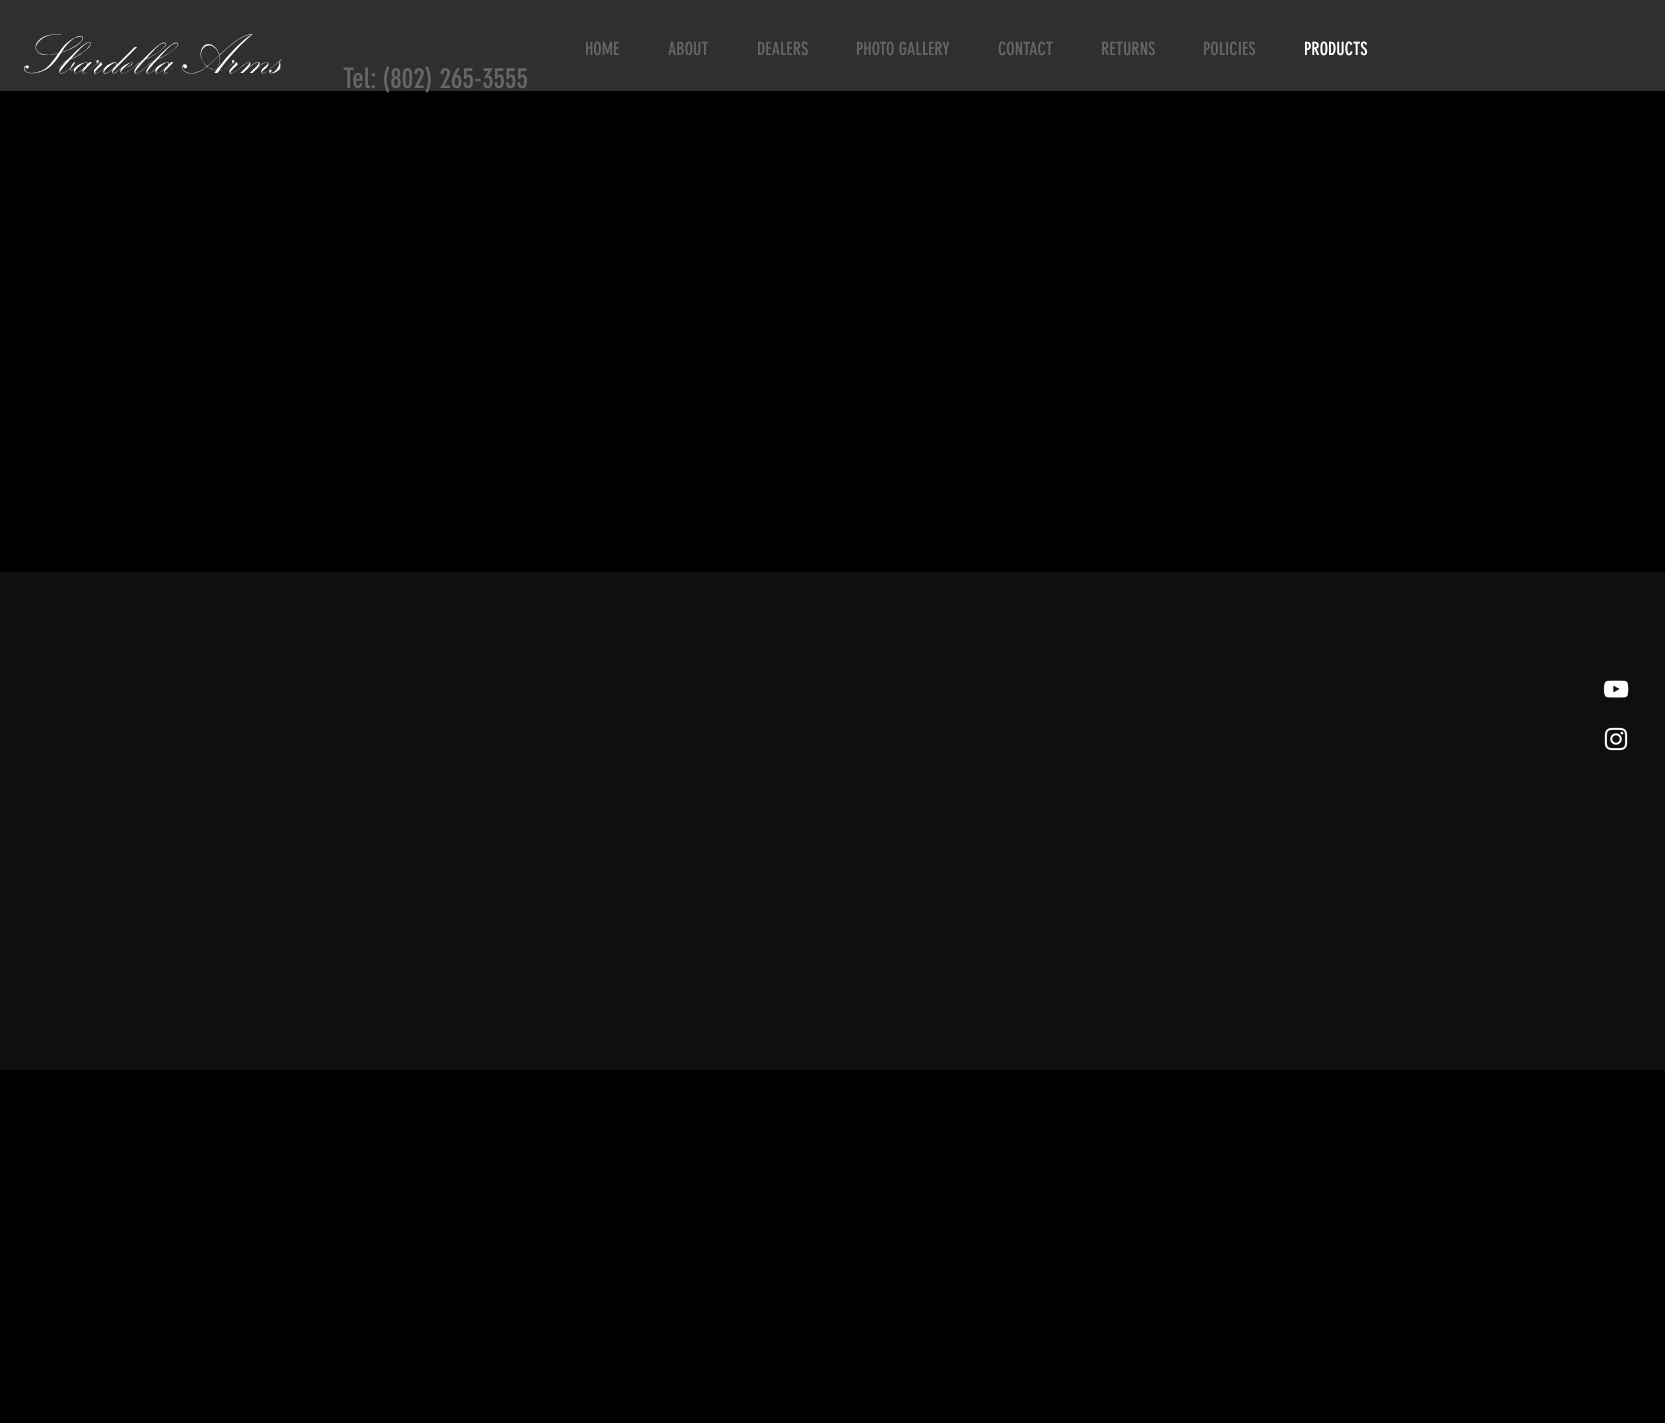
<svg xmlns="http://www.w3.org/2000/svg" width="1665" height="1423" viewBox="0 0 1665 1423">
  <style>
    .t1 { font: 57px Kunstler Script; fill: #fff; }
    .t2 { font: 18px 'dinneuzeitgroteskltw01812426'; fill: #666; }
    .t3 { font: 18px 'dinneuzeitgroteskltw01812426'; fill: #fff; }
    .t4 { font: 28px 'dinneuzeitgroteskltw01812426'; fill: #666; }
  </style>
  <rect width="100%" height="100%" fill="#000"/>
  <rect x="0" y="0" width="1665" height="91" fill="#2f2f2f"/>
  <text x="20" y="73" class="t1">Sbardella Arms</text>
  <text x="585" y="55" class="t2">HOME</text>
  <text x="668" y="55" class="t2">ABOUT</text>
  <text x="757" y="55" class="t2">DEALERS</text>
  <text x="856" y="55" class="t2">PHOTO GALLERY</text>
  <text x="998" y="55" class="t2">CONTACT</text>
  <text x="1101" y="55" class="t2">RETURNS</text>
  <text x="1203" y="55" class="t2">POLICIES</text>
  <text x="1304" y="55" class="t3">PRODUCTS</text>
  <text x="343" y="88" class="t4">Tel:</text>
  <text x="382" y="88" class="t4">(802) 265-3555</text>
  <rect x="0" y="572" width="1665" height="498" fill="#0f0f0f"/>
  <image x="1603" y="680" width="26" height="18" href="images/1.png"/>
  <image x="1604" y="727" width="24" height="24" href="images/2.png"/>
</svg>
